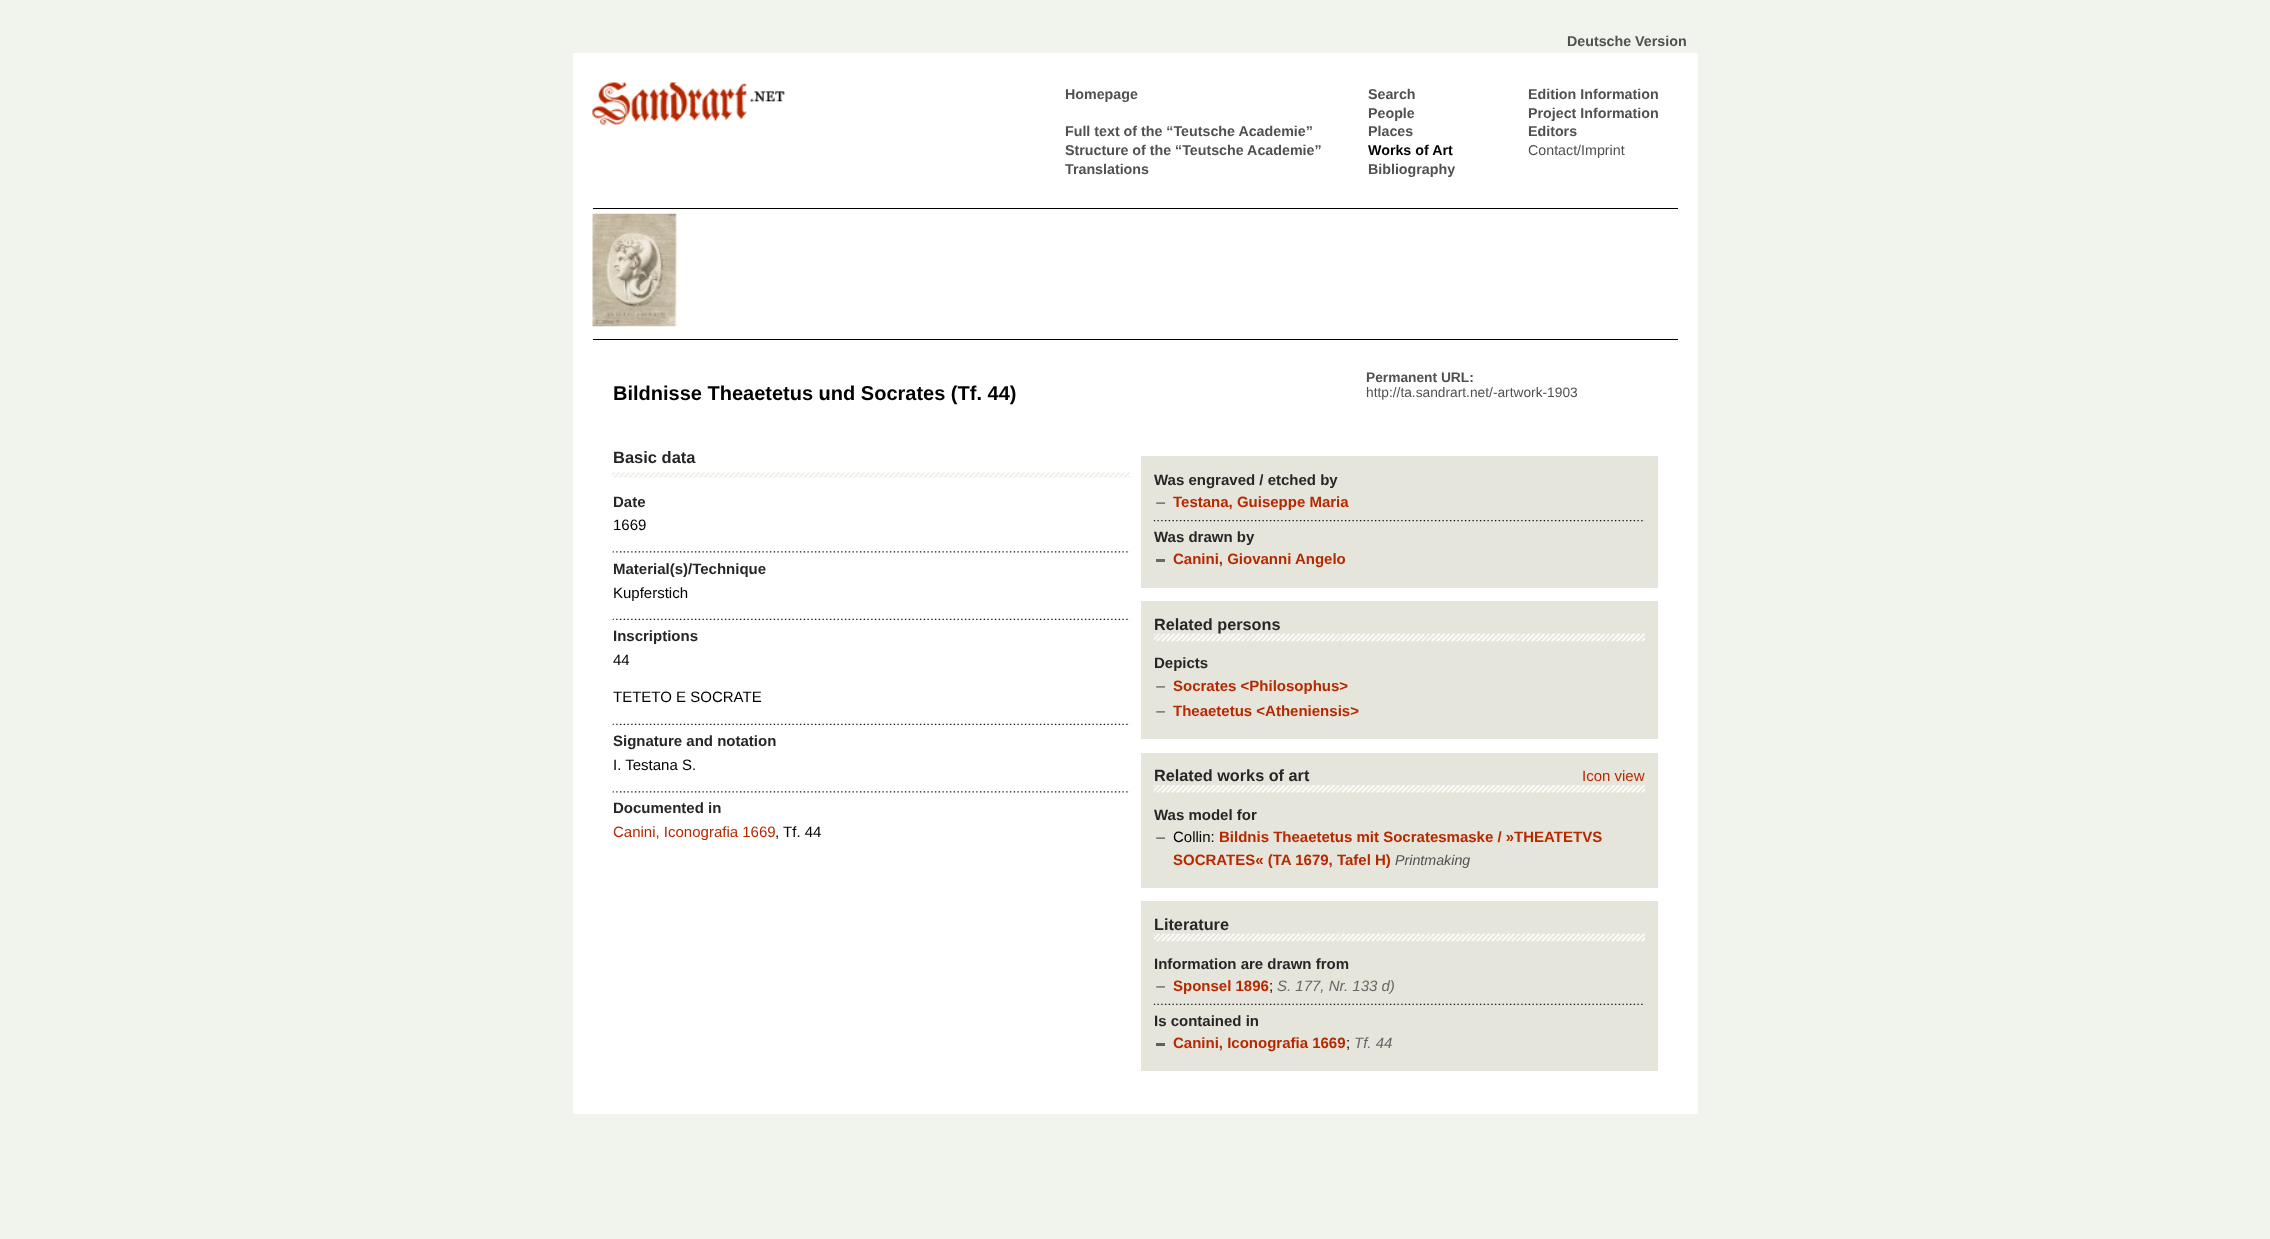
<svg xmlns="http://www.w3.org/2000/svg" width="2270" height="1239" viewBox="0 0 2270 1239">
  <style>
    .t1 { font: bold 14.25px Liberation Sans; fill: #505050; }
    .t2 { font: bold 14.25px Liberation Sans; fill: #000; }
    .t3 { font: 14.25px Liberation Sans; fill: #505050; }
    .t4 { font: bold 20px Liberation Sans; fill: #000; }
    .t5 { font: bold 13.75px Liberation Sans; fill: #505050; }
    .t6 { font: 13.75px Liberation Sans; fill: #505050; }
    .t7 { font: bold 16.5px Liberation Sans; fill: #262626; }
    .t8 { font: bold 15px Liberation Sans; fill: #262626; }
    .t9 { font: 15px Liberation Sans; fill: #000; }
    .t10 { font: 15px Liberation Sans; fill: #b52900; }
    .t11 { font: bold 15px Liberation Sans; fill: #b52900; }
    .t12 { font: bold 16.25px Liberation Sans; fill: #262626; }
    .t13 { font: italic 14.25px Liberation Sans; fill: #505050; }
    .t14 { font: italic 15px Liberation Sans; fill: #666; }
  </style>
  <rect width="100%" height="100%" fill="#f1f3ed"/>
  <text x="1567" y="46" class="t1">Deutsche Version</text>
  <rect x="573" y="53" width="1125" height="1061" fill="#fff"/>
  <rect x="593" y="208" width="1085" height="1" fill="#000"/>
  <image x="592" y="82" width="193" height="43" href="images/1.png"/>
  <text x="1065" y="99" class="t1">Homepage</text>
  <text x="1368" y="99" class="t1">Search</text>
  <text x="1528" y="99" class="t1">Edition Information</text>
  <text x="1368" y="118" class="t1">People</text>
  <text x="1528" y="118" class="t1">Project Information</text>
  <text x="1065" y="136" class="t1">Full text of the “Teutsche Academie”</text>
  <text x="1368" y="136" class="t1">Places</text>
  <text x="1528" y="136" class="t1">Editors</text>
  <text x="1065" y="155" class="t1">Structure of the “Teutsche Academie”</text>
  <text x="1368" y="155" class="t2">Works of Art</text>
  <text x="1528" y="155" class="t3">Contact/Imprint</text>
  <text x="1065" y="174" class="t1">Translations</text>
  <text x="1368" y="174" class="t1">Bibliography</text>
  <rect x="593" y="339" width="1085" height="1" fill="#000"/>
  <image x="592" y="213" width="87" height="114" href="images/2.png"/>
  <text x="613" y="400" class="t4">Bildnisse Theaetetus und Socrates (Tf. 44)</text>
  <text x="1366" y="382" class="t5">Permanent URL:</text>
  <text x="1366" y="397" class="t6">http://ta.sandrart.net/-artwork-1903</text>
  <image x="612" y="472" width="518" height="6" href="images/3.png"/>
  <text x="613" y="463" class="t7">Basic data</text>
  <text x="613" y="507" class="t8">Date</text>
  <text x="613" y="530" class="t9">1669</text>
  <image x="612" y="551" width="518" height="2" href="images/4.png"/>
  <text x="613" y="574" class="t8">Material(s)/Technique</text>
  <text x="613" y="598" class="t9">Kupferstich</text>
  <image x="612" y="618" width="518" height="2" href="images/5.png"/>
  <text x="613" y="641" class="t8">Inscriptions</text>
  <text x="613" y="665" class="t9">44</text>
  <text x="613" y="702" class="t9">TETETO E SOCRATE</text>
  <image x="612" y="723" width="518" height="2" href="images/5.png"/>
  <text x="613" y="746" class="t8">Signature and notation</text>
  <text x="613" y="770" class="t9">I. Testana S.</text>
  <image x="612" y="791" width="518" height="2" href="images/4.png"/>
  <text x="613" y="813" class="t8">Documented in</text>
  <text x="613" y="837" class="t10">Canini, Iconografia 1669</text>
  <text x="775" y="837" class="t9">, Tf. 44</text>
  <rect x="1141" y="456" width="517" height="132" fill="#e6e5db"/>
  <text x="1154" y="485" class="t8">Was engraved / etched by</text>
  <image x="1156" y="502" width="9" height="2" href="images/6.png"/>
  <text x="1173" y="507" class="t11">Testana, Guiseppe Maria</text>
  <image x="1153" y="520" width="492" height="2" href="images/7.png"/>
  <text x="1154" y="542" class="t8">Was drawn by</text>
  <rect x="1156" y="559" width="9" height="3" fill="#6a6968"/>
  <text x="1173" y="564" class="t11">Canini, Giovanni Angelo</text>
  <rect x="1141" y="601" width="517" height="138" fill="#e6e5db"/>
  <image x="1153" y="633" width="492" height="9" href="images/8.png"/>
  <text x="1154" y="630" class="t12">Related persons</text>
  <text x="1154" y="668" class="t8">Depicts</text>
  <image x="1156" y="686" width="9" height="2" href="images/9.png"/>
  <text x="1173" y="691" class="t11">Socrates &lt;Philosophus&gt;</text>
  <image x="1156" y="711" width="9" height="2" href="images/9.png"/>
  <text x="1173" y="716" class="t11">Theaetetus &lt;Atheniensis&gt;</text>
  <rect x="1141" y="753" width="517" height="135" fill="#e6e5db"/>
  <image x="1153" y="785" width="492" height="8" href="images/10.png"/>
  <text x="1154" y="781" class="t12">Related works of art</text>
  <text x="1582" y="781" class="t10">Icon view</text>
  <text x="1154" y="820" class="t8">Was model for</text>
  <image x="1156" y="837" width="9" height="2" href="images/6.png"/>
  <text x="1173" y="842" class="t9">Collin:</text>
  <text x="1219" y="842" class="t11">Bildnis Theaetetus mit Socratesmaske / »THEATETVS</text>
  <text x="1173" y="865" class="t11">SOCRATES« (TA 1679, Tafel H)</text>
  <text x="1395" y="865" class="t13">Printmaking</text>
  <rect x="1141" y="901" width="517" height="170" fill="#e6e5db"/>
  <image x="1153" y="933" width="492" height="9" href="images/11.png"/>
  <text x="1154" y="930" class="t12">Literature</text>
  <text x="1154" y="969" class="t8">Information are drawn from</text>
  <image x="1156" y="986" width="9" height="2" href="images/9.png"/>
  <text x="1173" y="991" class="t11">Sponsel 1896</text>
  <text x="1269" y="991" class="t9">;</text>
  <text x="1277" y="991" class="t14">S. 177, Nr. 133 d)</text>
  <image x="1153" y="1003" width="492" height="2" href="images/12.png"/>
  <text x="1154" y="1026" class="t8">Is contained in</text>
  <rect x="1156" y="1043" width="9" height="3" fill="#5f5f5e"/>
  <text x="1173" y="1048" class="t11">Canini, Iconografia 1669</text>
  <text x="1346" y="1048" class="t9">;</text>
  <text x="1354" y="1048" class="t14">Tf. 44</text>
</svg>
